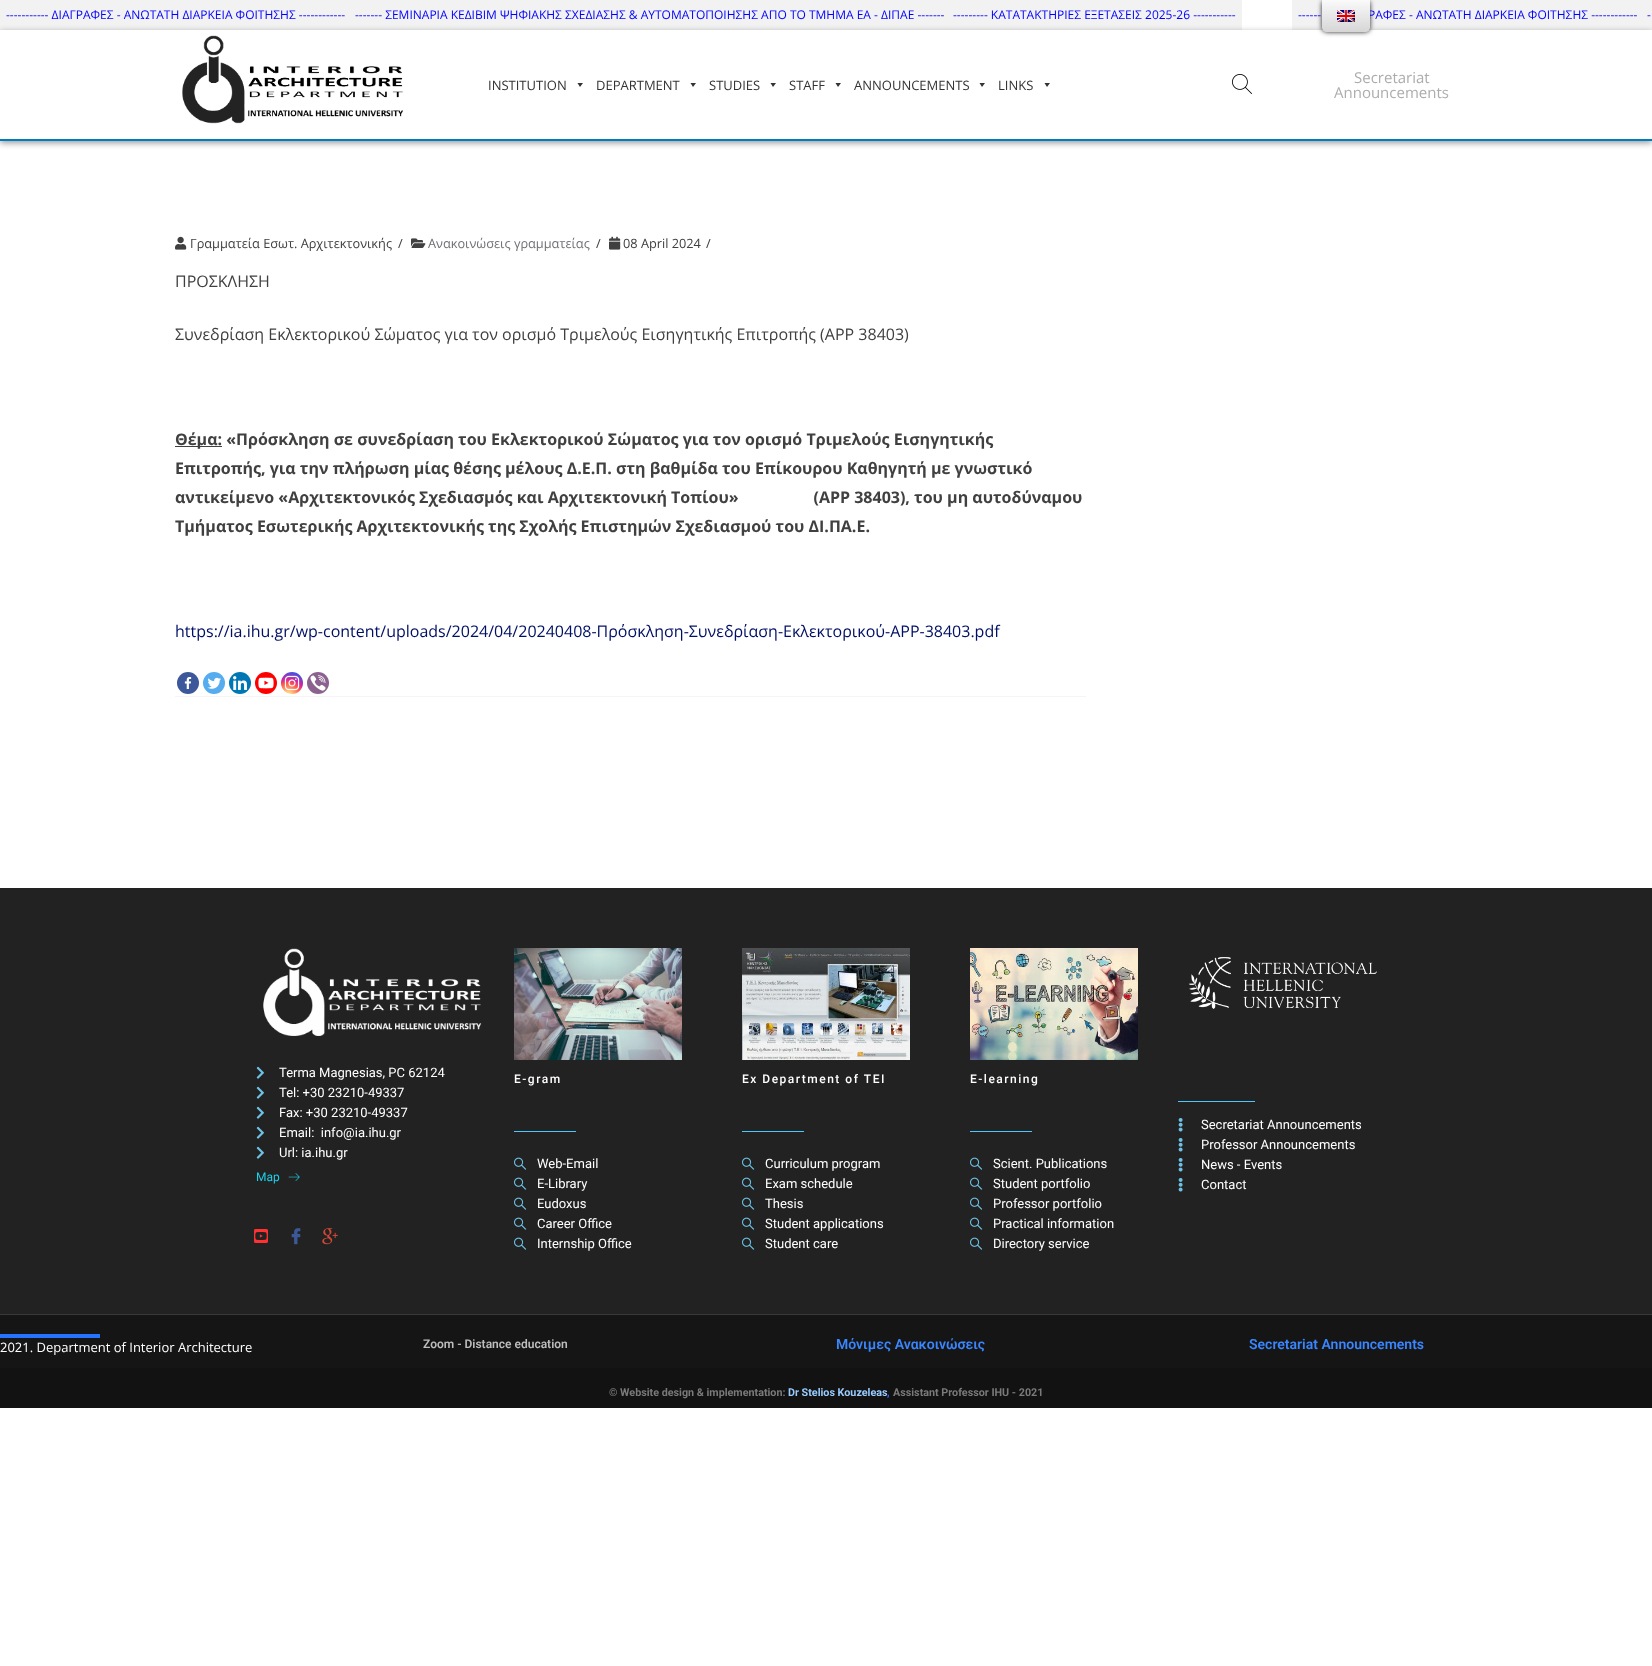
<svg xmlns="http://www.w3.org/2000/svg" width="1652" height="1666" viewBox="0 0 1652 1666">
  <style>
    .t1 { font: 12px Open Sans; fill: #00f; }
    .t2 { font: 13px Open Sans; fill: #333; }
    .t3 { font: 15px Open Sans; fill: #adadad; }
    .t4 { font: 12.75px Open Sans; fill: #404040; }
    .t5 { font: 12.75px Open Sans; fill: #716f75; }
    .t6 { font: 16px Open Sans; fill: #404040; }
    .t7 { font: bold 16px Open Sans; fill: #404040; }
    .t8 { font: 16px Open Sans; fill: #011064; }
    .t9 { font: 13px Roboto; fill: #fff; }
    .t10 { font: 12px Roboto; fill: #1bd1ea; }
    .t11 { font: 500 12px Roboto; letter-spacing: 1.5px; fill: #fff; }
    .t12 { font: 13px Open Sans; fill: #fff; }
    .t13 { font: 600 12px Roboto; fill: #bdbdbd; }
    .t14 { font: 600 14px Roboto; fill: #3986ff; }
    .t15 { font: bold 10.75px Roboto; fill: #7a7a7a; }
    .t16 { font: bold 10.75px Roboto; fill: #9cf; }
    .t17 { font: bold 10.75px Roboto; fill: #36f; }
  </style>
  <defs>
    <clipPath id="clip1"><path d="M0 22H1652V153H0ZM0 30H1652V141H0Z" clip-rule="evenodd"/></clipPath>
    <linearGradient id="g1" gradientUnits="userSpaceOnUse" x1="1346" y1="32" x2="1346" y2="0"><stop offset="0" stop-color="#d6d6d6"/><stop offset="1" stop-color="#fafafa"/></linearGradient>
    <radialGradient id="g2" gradientUnits="userSpaceOnUse" cx="288" cy="696" r="28"><stop offset="0" stop-color="#fdf497"/><stop offset="0.05" stop-color="#fdf497"/><stop offset="0.45" stop-color="#fd5949"/><stop offset="0.6" stop-color="#d6249f"/><stop offset="0.9" stop-color="#285aeb"/></radialGradient>
  </defs>
  <rect width="100%" height="100%" fill="#fff"/>
  <rect x="1292" y="0" width="360" height="30" fill="#f2f2f2"/>
  <rect x="1322" y="0" width="48" height="32" rx="5" fill="#212121" filter="blur(2.5px)"/>
  <text x="1368" y="19" class="t1">ΡΑΦΕΣ - ΑΝΩΤΑΤΗ ΔΙΑΡΚΕΙΑ ΦΟΙΤΗΣΗΣ ------------</text>
  <rect x="0" y="0" width="1242" height="30" fill="#f2f2f2"/>
  <g clip-path="url(#clip1)">
    <rect x="0" y="32" width="1652" height="111" fill="#00000066" filter="blur(3px)"/>
  </g>
  <path d="M1322 0H1370V27C1370 30 1368 32 1365 32H1327C1324 32 1322 30 1322 27Z" fill="url(#g1)"/>
  <image x="1337" y="10" width="18" height="12" href="images/1.png"/>
  <text x="6" y="19" class="t1">----------- ΔΙΑΓΡΑΦΕΣ - ΑΝΩΤΑΤΗ ΔΙΑΡΚΕΙΑ ΦΟΙΤΗΣΗΣ ------------</text>
  <text x="355" y="19" class="t1">------- ΣΕΜΙΝΑΡΙΑ ΚΕΔΙΒΙΜ ΨΗΦΙΑΚΗΣ ΣΧΕΔΙΑΣΗΣ &amp; ΑΥΤΟΜΑΤΟΠΟΙΗΣΗΣ ΑΠΟ ΤΟ ΤΜΗΜΑ ΕΑ - ΔΙΠΑΕ -------</text>
  <text x="953" y="19" class="t1">--------- ΚΑΤΑΤΑΚΤΗΡΙΕΣ ΕΞΕΤΑΣΕΙΣ 2025-26 -----------</text>
  <text x="1298" y="19" class="t1">------</text>
  <text x="1647" y="19" class="t1">-</text>
  <rect x="0" y="139" width="1652" height="2" fill="#017bbd"/>
  <image x="182" y="35" width="222" height="89" href="images/2.png"/>
  <text x="488" y="90" class="t2">INSTITUTION</text>
  <path d="M583 83L580 87L577.5 83Z" fill="#333"/>
  <text x="596" y="90" class="t2">DEPARTMENT</text>
  <path d="M696 83L693 87L690.5 83Z" fill="#333"/>
  <text x="709" y="90" class="t2">STUDIES</text>
  <path d="M776 83L773 87L770.5 83Z" fill="#333"/>
  <text x="789" y="90" class="t2">STAFF</text>
  <path d="M841 83L838 87L835.5 83Z" fill="#333"/>
  <text x="854" y="90" class="t2">ANNOUNCEMENTS</text>
  <path d="M985 83L982 87L979.5 83Z" fill="#333"/>
  <text x="998" y="90" class="t2">LINKS</text>
  <path d="M1050 83L1047 87L1044.5 83Z" fill="#333"/>
  <image x="1232" y="74" width="20" height="20" href="images/3.png"/>
  <text x="1354" y="83" class="t3">Secretariat</text>
  <text x="1334" y="98" class="t3">Announcements</text>
  <rect x="175" y="696" width="911" height="1" fill="#f5f5f5"/>
  <image x="175" y="236" width="12" height="14" href="images/4.png"/>
  <text x="190" y="248" class="t4">Γραμματεία Εσωτ. Αρχιτεκτονικής</text>
  <text x="398" y="248" class="t4">/</text>
  <image x="411" y="238" width="15" height="10" href="images/5.png"/>
  <text x="428" y="248" class="t5">Ανακοινώσεις γραμματείας</text>
  <text x="596" y="248" class="t4">/</text>
  <image x="609" y="236" width="12" height="14" href="images/6.png"/>
  <text x="623" y="248" class="t4">08 April 2024</text>
  <text x="706" y="248" class="t4">/</text>
  <text x="175" y="287" class="t6">ΠΡΟΣΚΛΗΣΗ</text>
  <text x="175" y="340" class="t6">Συνεδρίαση Εκλεκτορικού Σώματος για τον ορισμό Τριμελούς Εισηγητικής Επιτροπής (ΑΡΡ 38403)</text>
  <rect x="175" y="446" width="47" height="1" fill="#404040"/>
  <text x="175" y="445" class="t7">Θέμα: «Πρόσκληση σε συνεδρίαση του Εκλεκτορικού Σώματος για τον ορισμό Τριμελούς Εισηγητικής</text>
  <text x="175" y="474" class="t7">Επιτροπής, για την πλήρωση μίας θέσης μέλους Δ.Ε.Π. στη βαθμίδα του Επίκουρου Καθηγητή με γνωστικό</text>
  <text x="175" y="503" class="t7" xml:space="preserve">αντικείμενο «Αρχιτεκτονικός Σχεδιασμός και Αρχιτεκτονική Τοπίου»                  (ΑΡΡ 38403), του μη αυτοδύναμου</text>
  <text x="175" y="532" class="t7">Τμήματος Εσωτερικής Αρχιτεκτονικής της Σχολής Επιστημών Σχεδιασμού του ΔΙ.ΠΑ.Ε.</text>
  <text x="175" y="637" class="t8">https://ia.ihu.gr/wp-content/uploads/2024/04/20240408-Πρόσκληση-Συνεδρίαση-Εκλεκτορικού-ΑΡΡ-38403.pdf</text>
  <circle cx="188" cy="683" r="11" fill="#3c589a"/>
  <image x="184" y="677" width="8" height="12" href="images/7.png"/>
  <circle cx="214" cy="683" r="11" fill="#55acee"/>
  <image x="207" y="677" width="14" height="12" href="images/8.png"/>
  <circle cx="240" cy="683" r="11" fill="#0077b5"/>
  <image x="233" y="676" width="14" height="14" href="images/9.png"/>
  <circle cx="266" cy="683" r="11" fill="#f00"/>
  <image x="258" y="677" width="16" height="12" href="images/10.png"/>
  <circle cx="292" cy="683" r="11" fill="url(#g2)"/>
  <image x="284" y="675" width="16" height="16" href="images/11.png"/>
  <circle cx="318" cy="683" r="11" fill="#8b628f"/>
  <image x="310" y="675" width="16" height="16" href="images/12.png"/>
  <rect x="0" y="888" width="1652" height="426" fill="#222"/>
  <rect x="0" y="1314" width="1652" height="1" fill="#393939"/>
  <image x="263" y="948" width="219" height="88" href="images/13.png"/>
  <image x="256" y="1066" width="8" height="13" href="images/14.png"/>
  <text x="279" y="1077" class="t9">Terma Magnesias, PC 62124</text>
  <image x="256" y="1086" width="8" height="13" href="images/14.png"/>
  <text x="279" y="1097" class="t9">Tel: +30 23210-49337</text>
  <image x="256" y="1106" width="8" height="13" href="images/14.png"/>
  <text x="279" y="1117" class="t9">Fax: +30 23210-49337</text>
  <image x="256" y="1126" width="8" height="13" href="images/14.png"/>
  <text x="279" y="1137" class="t9" xml:space="preserve">Email:  info@ia.ihu.gr</text>
  <image x="256" y="1146" width="8" height="13" href="images/14.png"/>
  <text x="279" y="1157" class="t9">Url: ia.ihu.gr</text>
  <text x="256" y="1181" class="t10">Map</text>
  <image x="288" y="1173" width="12" height="8" href="images/15.png"/>
  <image x="254" y="1229" width="14" height="14" href="images/16.png"/>
  <image x="291" y="1228" width="10" height="17" href="images/17.png"/>
  <image x="322" y="1228" width="16" height="17" href="images/18.png"/>
  <image x="514" y="948" width="168" height="112" href="images/19.png"/>
  <text x="514" y="1083" class="t11">E-gram</text>
  <rect x="514" y="1131" width="62" height="1" fill="#4ac9ff"/>
  <image x="514" y="1157" width="13" height="13" href="images/20.png"/>
  <text x="537" y="1168" class="t9">Web-Email</text>
  <image x="514" y="1177" width="13" height="13" href="images/20.png"/>
  <text x="537" y="1188" class="t9">E-Library</text>
  <image x="514" y="1197" width="13" height="13" href="images/20.png"/>
  <text x="537" y="1208" class="t9">Eudoxus</text>
  <image x="514" y="1217" width="13" height="13" href="images/20.png"/>
  <text x="537" y="1228" class="t9">Career Office</text>
  <image x="514" y="1237" width="13" height="13" href="images/20.png"/>
  <text x="537" y="1248" class="t9">Internship Office</text>
  <image x="742" y="948" width="168" height="112" href="images/21.png"/>
  <text x="742" y="1083" class="t11">Ex Department of ΤΕΙ</text>
  <rect x="742" y="1131" width="62" height="1" fill="#4ac9ff"/>
  <image x="742" y="1157" width="13" height="13" href="images/20.png"/>
  <text x="765" y="1168" class="t9">Curriculum program</text>
  <image x="742" y="1177" width="13" height="13" href="images/20.png"/>
  <text x="765" y="1188" class="t9">Exam schedule</text>
  <image x="742" y="1197" width="13" height="13" href="images/20.png"/>
  <text x="765" y="1208" class="t9">Thesis</text>
  <image x="742" y="1217" width="13" height="13" href="images/20.png"/>
  <text x="765" y="1228" class="t9">Student applications</text>
  <image x="742" y="1237" width="13" height="13" href="images/20.png"/>
  <text x="765" y="1248" class="t9">Student care</text>
  <image x="970" y="948" width="168" height="112" href="images/22.png"/>
  <text x="970" y="1083" class="t11">E-learning</text>
  <rect x="970" y="1131" width="62" height="1" fill="#4ac9ff"/>
  <image x="970" y="1157" width="13" height="13" href="images/20.png"/>
  <text x="993" y="1168" class="t9">Scient. Publications</text>
  <image x="970" y="1177" width="13" height="13" href="images/20.png"/>
  <text x="993" y="1188" class="t9">Student portfolio</text>
  <image x="970" y="1197" width="13" height="13" href="images/20.png"/>
  <text x="993" y="1208" class="t9">Professor portfolio</text>
  <image x="970" y="1217" width="13" height="13" href="images/20.png"/>
  <text x="993" y="1228" class="t9">Practical information</text>
  <image x="970" y="1237" width="13" height="13" href="images/20.png"/>
  <text x="993" y="1248" class="t9">Directory service</text>
  <image x="1188" y="957" width="189" height="52" href="images/23.png"/>
  <rect x="1178" y="1101" width="77" height="1" fill="#4ac9ff"/>
  <image x="1178" y="1118" width="5" height="14" href="images/24.png"/>
  <text x="1201" y="1129" class="t9">Secretariat Announcements</text>
  <image x="1178" y="1138" width="5" height="14" href="images/24.png"/>
  <text x="1201" y="1149" class="t9">Professor Announcements</text>
  <image x="1178" y="1158" width="5" height="14" href="images/24.png"/>
  <text x="1201" y="1169" class="t9">News - Events</text>
  <image x="1178" y="1178" width="5" height="14" href="images/24.png"/>
  <text x="1201" y="1189" class="t9">Contact</text>
  <rect x="0" y="1315" width="1652" height="53" fill="#151515"/>
  <rect x="0" y="1334" width="100" height="4" fill="#2575fc"/>
  <text x="0" y="1352" class="t12">2021. Department of Interior Architecture</text>
  <text x="423" y="1348" class="t13">Zoom - Distance education</text>
  <text x="836" y="1349" class="t14">Μόνιμες Ανακοινώσεις</text>
  <text x="1249" y="1349" class="t14">Secretariat Announcements</text>
  <rect x="0" y="1368" width="1652" height="40" fill="#121212"/>
  <text x="609" y="1396" class="t15">© Website design &amp; implementation:</text>
  <text x="788" y="1396" class="t16">Dr Stelios Kouzeleas</text>
  <text x="887" y="1396" class="t17">,</text>
  <text x="893" y="1396" class="t15">Assistant Professor IHU - 2021</text>
</svg>
